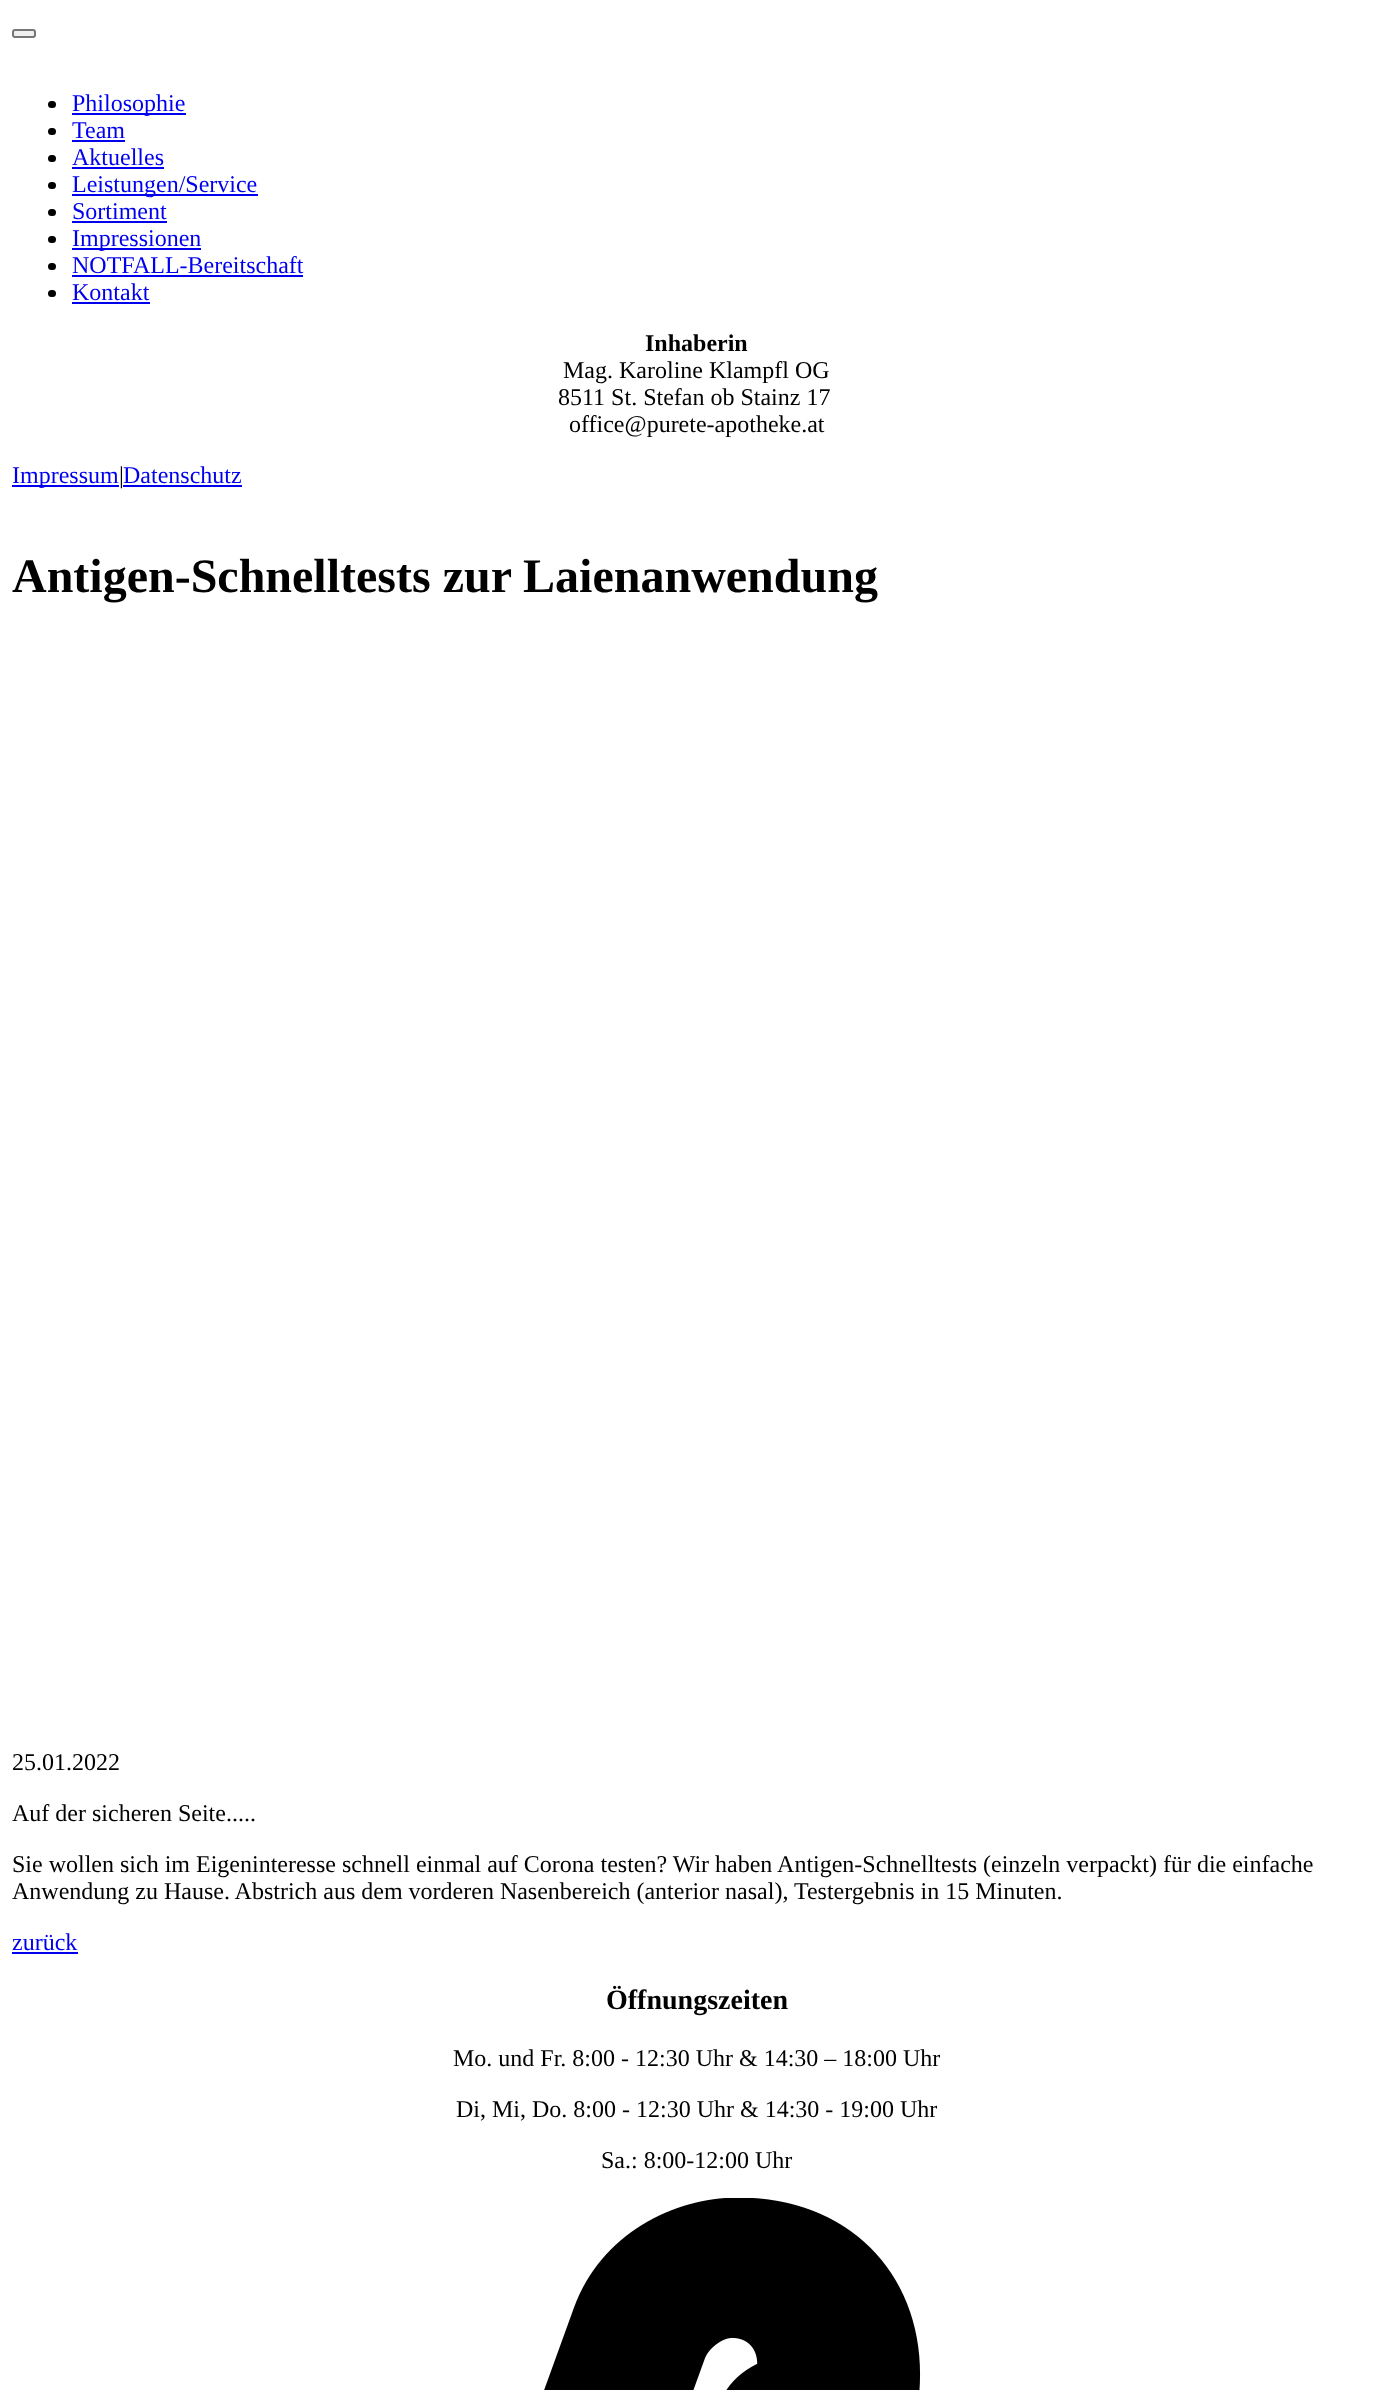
<svg xmlns="http://www.w3.org/2000/svg" width="1393" height="2390" viewBox="0 0 1393 2390">
  <style>
    .t1 { font: 24px Liberation Serif; fill: #00e; }
    .t2 { font: bold 24px Liberation Serif; fill: #000; }
    .t3 { font: 24px Liberation Serif; fill: #000; }
    .t4 { font: bold 48px Liberation Serif; fill: #000; }
    .t5 { font: bold 28px Liberation Serif; fill: #000; }
  </style>
  <rect width="100%" height="100%" fill="#fff"/>
  <rect x="13" y="30" width="22" height="7" rx="2" fill="#efefef" stroke="#767676" stroke-width="2"/>
  <rect x="48" y="101" width="8" height="7" rx="3.5" fill="#000"/>
  <rect x="72" y="113" width="114" height="2" fill="#00e"/>
  <text x="72" y="111" class="t1">Philosophie</text>
  <rect x="48" y="128" width="8" height="7" rx="3.5" fill="#000"/>
  <text x="72" y="138" class="t1">Team</text>
  <rect x="72" y="140" width="53" height="2" fill="#00e"/>
  <rect x="48" y="155" width="8" height="7" rx="3.5" fill="#000"/>
  <text x="72" y="165" class="t1">Aktuelles</text>
  <rect x="72" y="167" width="92" height="2" fill="#00e"/>
  <rect x="48" y="182" width="8" height="7" rx="3.5" fill="#000"/>
  <rect x="72" y="194" width="186" height="2" fill="#00e"/>
  <text x="72" y="192" class="t1">Leistungen/Service</text>
  <rect x="48" y="209" width="8" height="7" rx="3.5" fill="#000"/>
  <text x="72" y="219" class="t1">Sortiment</text>
  <rect x="72" y="221" width="95" height="2" fill="#00e"/>
  <rect x="48" y="236" width="8" height="7" rx="3.5" fill="#000"/>
  <rect x="72" y="248" width="129" height="2" fill="#00e"/>
  <text x="72" y="246" class="t1">Impressionen</text>
  <rect x="48" y="263" width="8" height="7" rx="3.5" fill="#000"/>
  <text x="72" y="273" class="t1">NOTFALL-Bereitschaft</text>
  <rect x="72" y="275" width="231" height="2" fill="#00e"/>
  <rect x="48" y="290" width="8" height="7" rx="3.5" fill="#000"/>
  <text x="72" y="300" class="t1">Kontakt</text>
  <rect x="72" y="302" width="78" height="2" fill="#00e"/>
  <text x="645" y="351" class="t2">Inhaberin</text>
  <text x="563" y="378" class="t3">Mag. Karoline Klampfl OG</text>
  <text x="558" y="405" class="t3">8511 St. Stefan ob Stainz 17</text>
  <text x="569" y="432" class="t3">office@purete-apotheke.at</text>
  <rect x="12" y="485" width="107" height="2" fill="#00e"/>
  <text x="12" y="483" class="t1">Impressum</text>
  <text x="119" y="483" class="t3">|</text>
  <text x="123" y="483" class="t1">Datenschutz</text>
  <rect x="123" y="485" width="119" height="2" fill="#00e"/>
  <text x="12" y="592" class="t4">Antigen-Schnelltests zur Laienanwendung</text>
  <text x="12" y="1770" class="t3">25.01.2022</text>
  <text x="12" y="1821" class="t3">Auf der sicheren Seite.....</text>
  <text x="12" y="1872" class="t3">Sie wollen sich im Eigeninteresse schnell einmal auf Corona testen? Wir haben Antigen-Schnelltests (einzeln verpackt) für die einfache</text>
  <text x="12" y="1899" class="t3">Anwendung zu Hause. Abstrich aus dem vorderen Nasenbereich (anterior nasal), Testergebnis in 15 Minuten.</text>
  <text x="12" y="1950" class="t1">zurück</text>
  <rect x="12" y="1952" width="66" height="2" fill="#00e"/>
  <text x="606" y="2009" class="t5">Öffnungszeiten</text>
  <text x="453" y="2066" class="t3">Mo. und Fr. 8:00 - 12:30 Uhr &amp; 14:30 – 18:00 Uhr</text>
  <text x="456" y="2117" class="t3">Di, Mi, Do. 8:00 - 12:30 Uhr &amp; 14:30 - 19:00 Uhr</text>
  <text x="601" y="2168" class="t3">Sa.: 8:00-12:00 Uhr</text>
  <image x="544" y="2198" width="377" height="192" href="images/1.png"/>
</svg>
